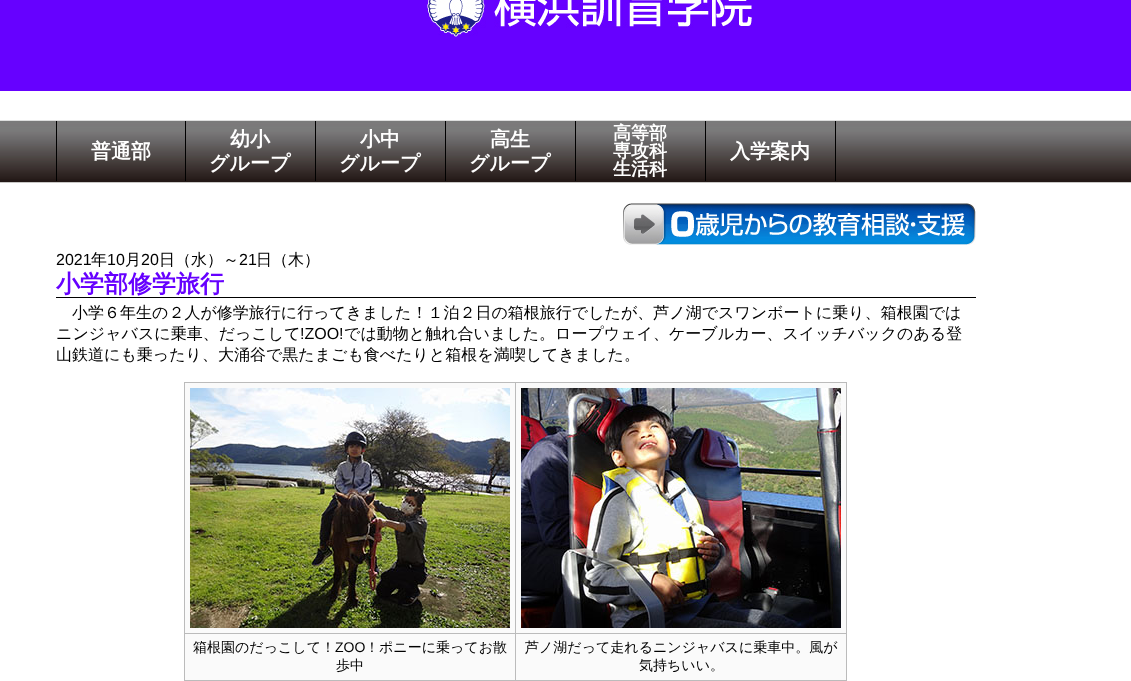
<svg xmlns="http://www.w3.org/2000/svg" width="1131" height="681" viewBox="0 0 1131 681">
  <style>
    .t1 { font: bold 20px WenQuanYi Zen Hei; fill: #fff; }
    .t2 { font: bold 18px WenQuanYi Zen Hei; fill: #fff; }
    .t3 { font: 16px Liberation Sans; fill: #000; }
    .t4 { font: 500 16px WenQuanYi Zen Hei; fill: #000; }
    .t5 { font: bold 24px WenQuanYi Zen Hei; fill: #60f; }
    .t6 { font: 500 14px WenQuanYi Zen Hei; fill: #000; }
    .t7 { font: 14px Liberation Sans; fill: #000; }
  </style>
  <rect width="100%" height="100%" fill="#fff"/>
  <image x="0" y="0" width="1131" height="183" href="images/1.png"/>
  <image x="427" y="0" width="325" height="37" href="images/2.png"/>
  <rect x="185" y="121" width="1" height="60" fill="#000"/>
  <rect x="56" y="121" width="1" height="60" fill="#000"/>
  <text x="91" y="158" class="t1">普通部</text>
  <rect x="315" y="121" width="1" height="60" fill="#000"/>
  <text x="230" y="146" class="t1">幼小</text>
  <text x="209" y="170" class="t1">グループ</text>
  <rect x="445" y="121" width="1" height="60" fill="#000"/>
  <text x="360" y="146" class="t1">小中</text>
  <text x="339" y="170" class="t1">グループ</text>
  <rect x="575" y="121" width="1" height="60" fill="#000"/>
  <text x="490" y="146" class="t1">高生</text>
  <text x="469" y="170" class="t1">グループ</text>
  <rect x="705" y="121" width="1" height="60" fill="#000"/>
  <text x="613" y="139" class="t2">高等部</text>
  <text x="613" y="157" class="t2">専攻科</text>
  <text x="613" y="175" class="t2">生活科</text>
  <rect x="835" y="121" width="1" height="60" fill="#000"/>
  <text x="730" y="158" class="t1">入学案内</text>
  <image x="623" y="203" width="353" height="42" href="images/3.png"/>
  <text x="56" y="265" class="t3">2021</text>
  <text x="91" y="265" class="t4">年</text>
  <text x="107" y="265" class="t3">10</text>
  <text x="125" y="265" class="t4">月</text>
  <text x="141" y="265" class="t3">20</text>
  <text x="159" y="265" class="t4">日（水）～</text>
  <text x="239" y="265" class="t3">21</text>
  <text x="256" y="265" class="t4">日（木）</text>
  <rect x="56" y="297" width="920" height="1" fill="#000"/>
  <text x="56" y="292" class="t5">小学部修学旅行</text>
  <text x="72" y="318" class="t4">小学６年生の２人が修学旅行に行ってきました！１泊２日の箱根旅行でしたが、芦ノ湖でスワンボートに乗り、箱根園では</text>
  <text x="56" y="339" class="t4">ニンジャバスに乗車、だっこして</text>
  <text x="300" y="339" class="t3">!ZOO!</text>
  <text x="344" y="339" class="t4">では動物と触れ合いました。ロープウェイ、ケーブルカー、スイッチバックのある登</text>
  <text x="56" y="360" class="t4">山鉄道にも乗ったり、大涌谷で黒たまごも食べたりと箱根を満喫してきました。</text>
  <rect x="185" y="383" width="330" height="250" fill="#fafafa"/>
  <rect x="515" y="382" width="332" height="1" fill="#bbb"/>
  <rect x="515" y="633" width="332" height="1" fill="#bbb"/>
  <rect x="184" y="680" width="663" height="1" fill="#bbb"/>
  <rect x="515" y="633" width="1" height="48" fill="#bbb"/>
  <rect x="184" y="633" width="332" height="1" fill="#bbb"/>
  <rect x="515" y="382" width="1" height="252" fill="#bbb"/>
  <rect x="184" y="382" width="332" height="1" fill="#bbb"/>
  <rect x="184" y="633" width="1" height="48" fill="#bbb"/>
  <rect x="184" y="382" width="1" height="252" fill="#bbb"/>
  <image x="190" y="388" width="320" height="240" href="images/4.png"/>
  <rect x="516" y="383" width="330" height="250" fill="#fafafa"/>
  <rect x="846" y="633" width="1" height="48" fill="#bbb"/>
  <rect x="846" y="382" width="1" height="252" fill="#bbb"/>
  <image x="521" y="388" width="320" height="240" href="images/5.png"/>
  <rect x="185" y="634" width="330" height="46" fill="#fafafa"/>
  <text x="193" y="652" class="t6">箱根園のだっこして！</text>
  <text x="335" y="652" class="t7">ZOO</text>
  <text x="365" y="652" class="t6">！ポニーに乗ってお散</text>
  <text x="336" y="670" class="t6">歩中</text>
  <rect x="516" y="634" width="330" height="46" fill="#fafafa"/>
  <text x="525" y="652" class="t6">芦ノ湖だって走れるニンジャバスに乗車中。風が</text>
  <text x="639" y="670" class="t6">気持ちいい。</text>
</svg>
